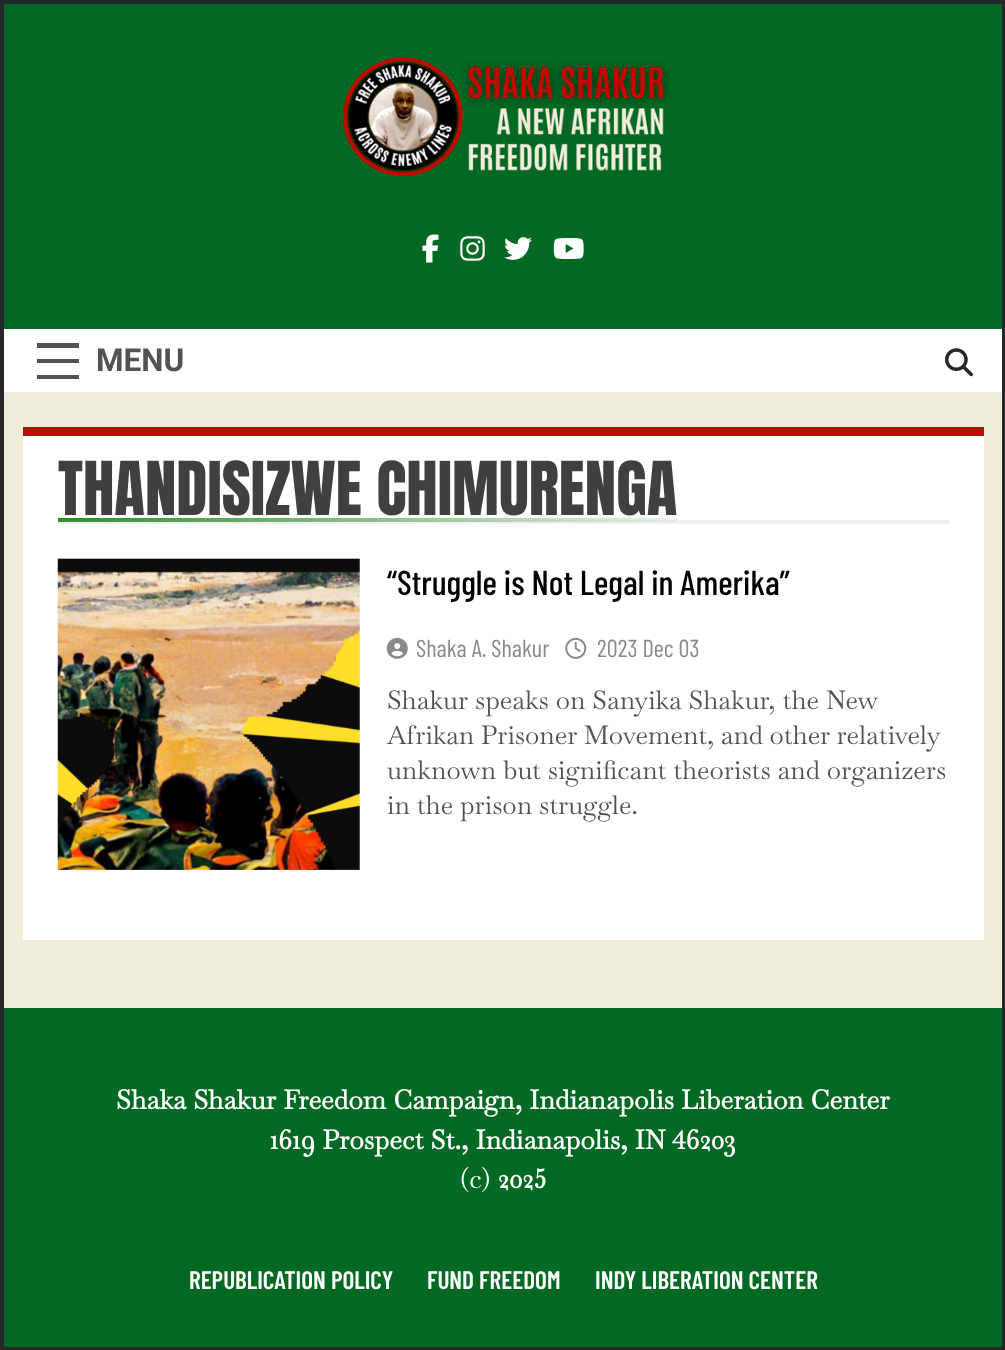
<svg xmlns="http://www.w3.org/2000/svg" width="1005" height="1350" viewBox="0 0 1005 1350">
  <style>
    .t1 { font: bold 31.5px Roboto; fill: #525252; }
    .t2 { font: 63px Anton; fill: #404040; }
    .t3 { font: 500 34.6px Barlow Condensed; fill: #000; }
    .t4 { font: 24.5px Barlow Condensed; fill: #8a8a8c; }
    .t5 { font: 26px Baskervville; fill: #525252; }
    .t6 { font: bold 26.6px Baskervville; fill: #fff; }
    .t7 { font: 26.6px Baskervville; fill: #fff; }
    .t8 { font: 600 25.25px Barlow Condensed; fill: #fff; }
  </style>
  <defs>
    <linearGradient id="g1" gradientUnits="userSpaceOnUse" x1="366" y1="496" x2="369" y2="543"><stop offset="0" stop-color="#1b8415"/><stop offset="1" stop-color="#1b8415" stop-opacity="0"/></linearGradient>
  </defs>
  <rect width="100%" height="100%" fill="#f1eddb"/>
  <rect x="4" y="4" width="998" height="325" fill="#026924"/>
  <image x="342" y="57" width="328" height="120" href="images/1.png"/>
  <image x="422" y="234" width="17" height="29" href="images/2.png"/>
  <image x="460" y="236" width="25" height="25" href="images/3.png"/>
  <image x="504" y="237" width="28" height="23" href="images/4.png"/>
  <image x="553" y="238" width="31" height="21" href="images/5.png"/>
  <rect x="4" y="329" width="998" height="63" fill="#fff"/>
  <rect x="37" y="343" width="42" height="5" fill="#525252"/>
  <rect x="37" y="359" width="42" height="4" fill="#525252"/>
  <rect x="37" y="375" width="42" height="4" fill="#525252"/>
  <image x="945" y="348" width="28" height="29" href="images/6.png"/>
  <rect x="23" y="436" width="961" height="504" fill="#fff"/>
  <rect x="23" y="427" width="961" height="9" fill="#c40905"/>
  <rect x="58" y="520" width="891" height="4" fill="#f0f0f0"/>
  <rect x="58" y="518" width="619" height="4" fill="url(#g1)"/>
  <image x="57" y="558" width="303" height="312" href="images/7.png"/>
  <image x="386" y="637" width="22" height="22" href="images/8.png"/>
  <image x="565" y="637" width="22" height="22" href="images/9.png"/>
  <rect x="4" y="1008" width="998" height="339" fill="#026924"/>
  <rect x="2" y="2" width="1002" height="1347" fill="none" stroke="#27272a" stroke-width="4"/>
  <text x="96" y="371" class="t1">MENU</text>
  <text x="58" y="515" class="t2">THANDISIZWE CHIMURENGA</text>
  <text x="387" y="595" class="t3">“Struggle is Not Legal in Amerika”</text>
  <text x="416" y="657" class="t4">Shaka A. Shakur</text>
  <text x="597" y="657" class="t4">2023 Dec 03</text>
  <text x="387" y="709" class="t5">Shakur speaks on Sanyika Shakur, the New</text>
  <text x="387" y="744" word-spacing="-0.5" class="t5">Afrikan Prisoner Movement, and other relatively</text>
  <text x="387" y="779" class="t5">unknown but significant theorists and organizers</text>
  <text x="387" y="814" class="t5">in the prison struggle.</text>
  <text x="116" y="1109" class="t6">Shaka Shakur Freedom Campaign, Indianapolis Liberation Center</text>
  <text x="270" y="1149" class="t6">1619 Prospect St., Indianapolis, IN 46203</text>
  <text x="460" y="1188" class="t7">(c)</text>
  <text x="498" y="1188" class="t6">2025</text>
  <text x="189" y="1289" class="t8">REPUBLICATION POLICY</text>
  <text x="427" y="1289" class="t8">FUND FREEDOM</text>
  <text x="595" y="1289" class="t8">INDY LIBERATION CENTER</text>
</svg>
